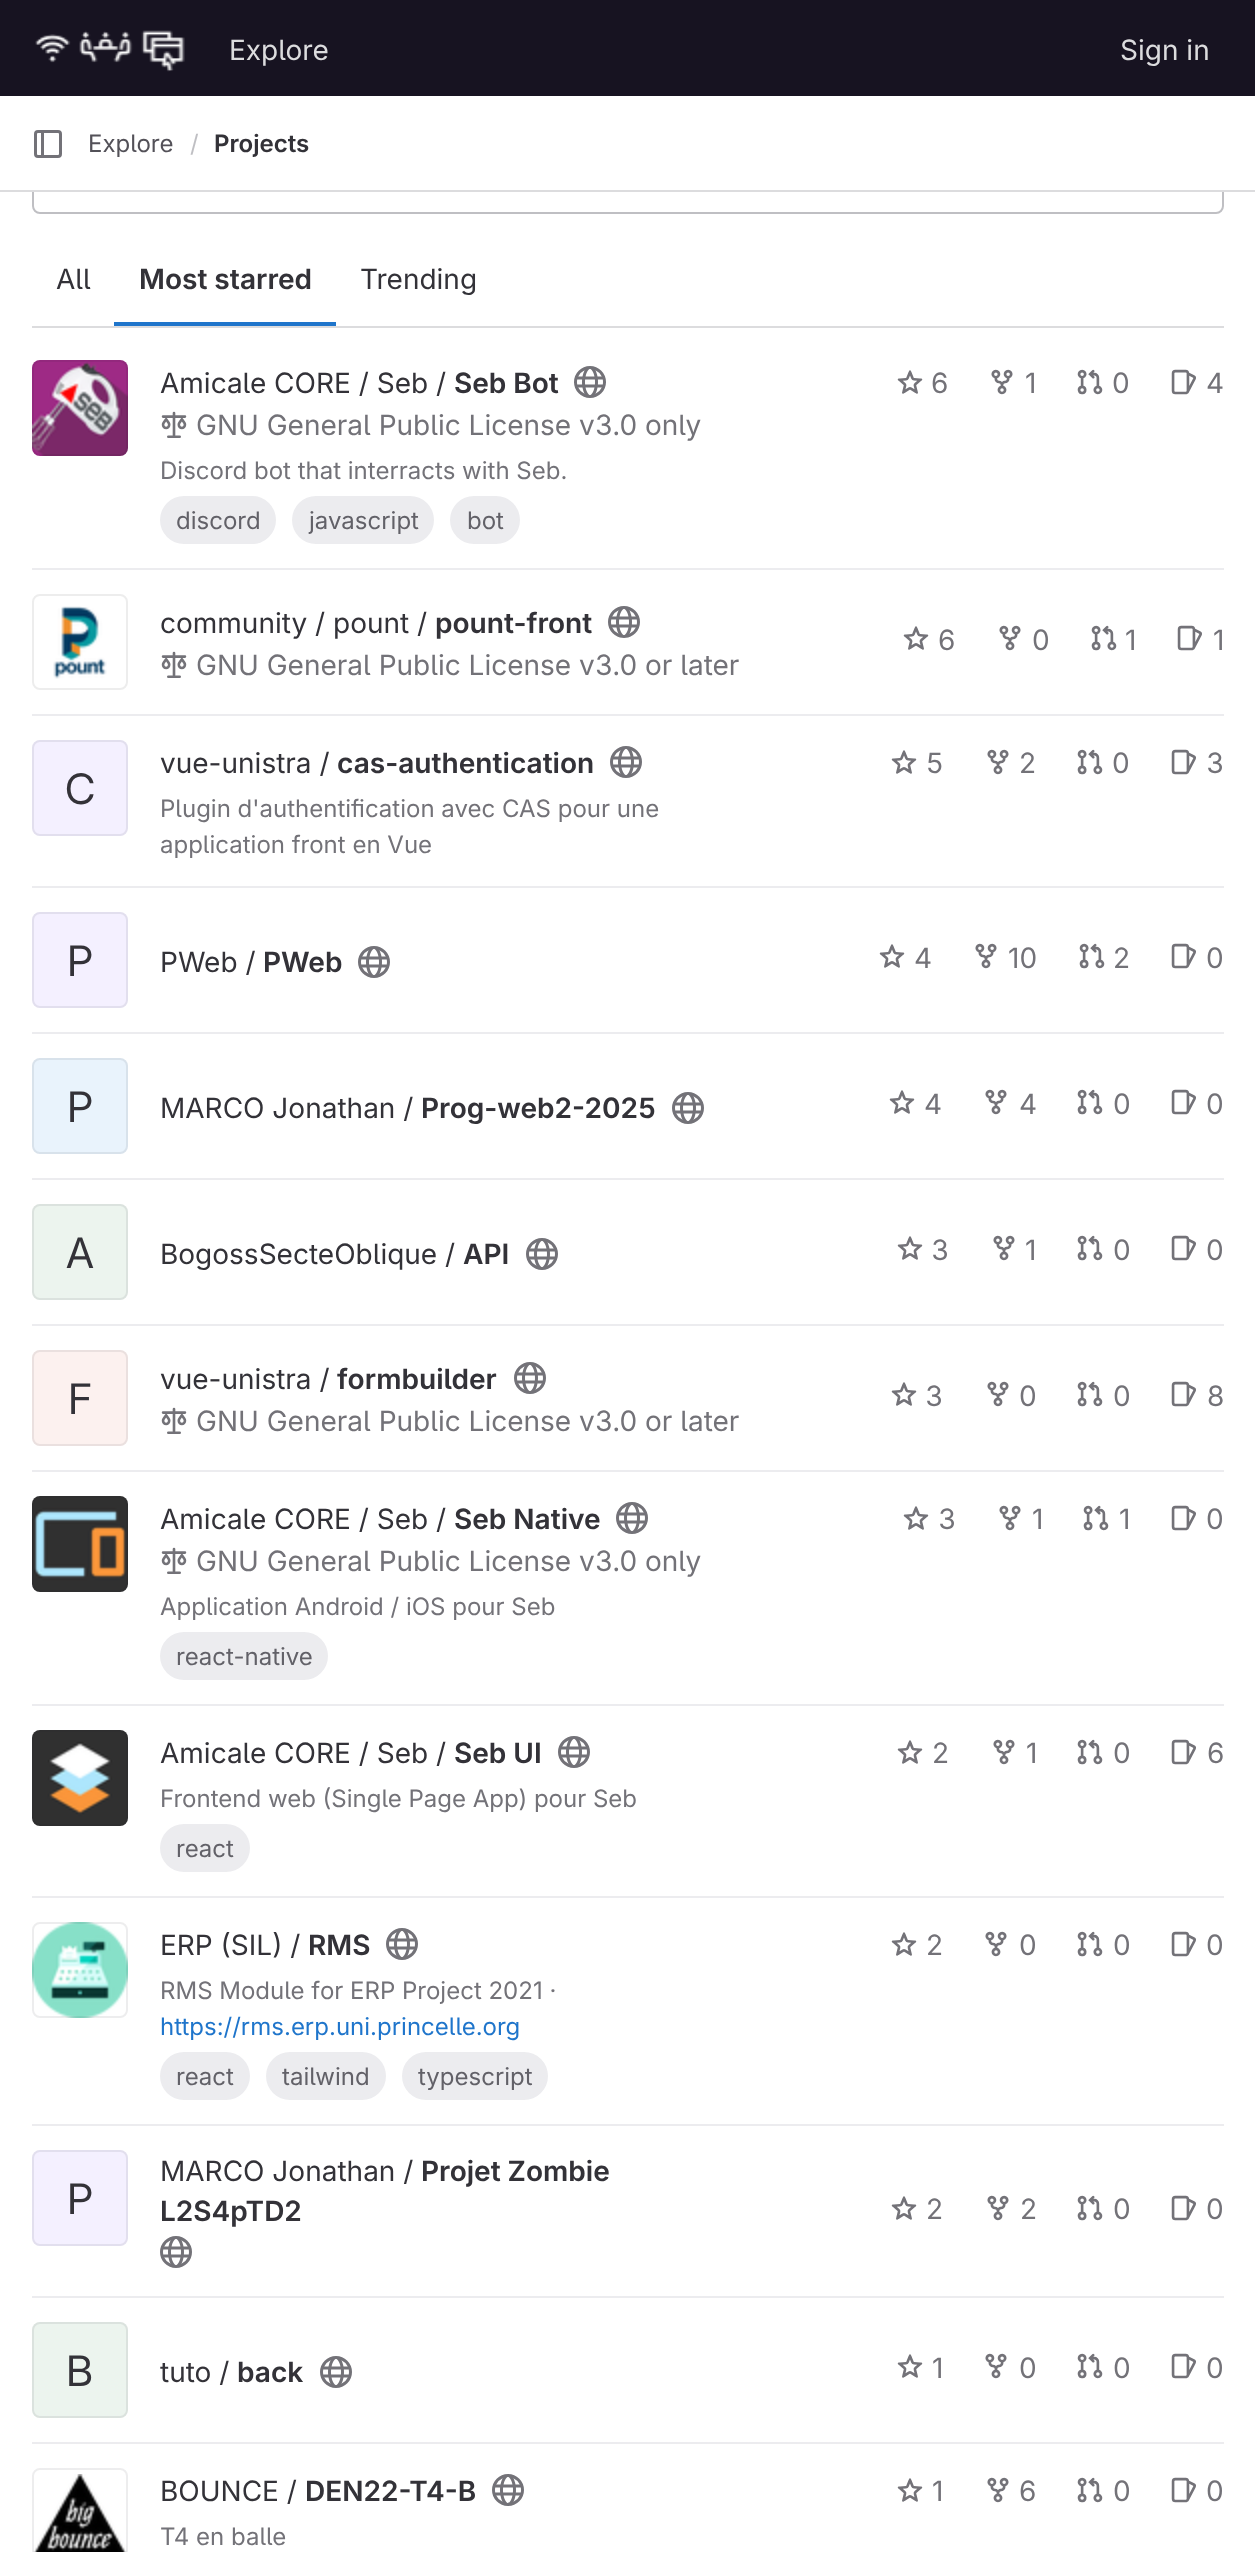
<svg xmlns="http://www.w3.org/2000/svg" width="1255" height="2552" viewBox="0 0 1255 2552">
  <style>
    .t1 { font: 28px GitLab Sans; fill: #dcdcde; }
    .t2 { font: 24px GitLab Sans; fill: #535158; }
    .t3 { font: 24px GitLab Sans; fill: #bfbfc3; }
    .t4 { font: 600 24px GitLab Sans; fill: #333238; }
    .t5 { font: 28px GitLab Sans; fill: #333238; }
    .t6 { font: 600 28px GitLab Sans; fill: #333238; }
    .t7 { font: 28px GitLab Sans; fill: #737278; }
    .t8 { font: 24px GitLab Sans; fill: #737278; }
    .t9 { font: 24px GitLab Sans; fill: #626168; }
    .t10 { font: 42px 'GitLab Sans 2'; fill: #333238; }
    .t11 { font: 42px 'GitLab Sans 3'; fill: #333238; }
    .t12 { font: 24px GitLab Sans; fill: #1f75cb; }
  </style>
  <rect width="100%" height="100%" fill="#fff"/>
  <rect x="0" y="0" width="1255" height="96" fill="#171321"/>
  <image x="35" y="30" width="150" height="42" href="images/1.png"/>
  <text x="229" y="60" class="t1">Explore</text>
  <text x="1120" y="60" class="t1">Sign in</text>
  <rect x="33" y="151" width="1190" height="62" rx="7" fill="none" stroke="#bfbfc3" stroke-width="2"/>
  <rect x="32" y="150" width="1192" height="40" fill="#fff"/>
  <rect x="0" y="190" width="1255" height="2" fill="#dcdcde"/>
  <image x="34" y="130" width="28" height="28" href="images/2.png"/>
  <text x="88" y="152" class="t2">Explore</text>
  <text x="190" y="152" class="t3">/</text>
  <text x="214" y="152" class="t4">Projects</text>
  <rect x="32" y="326" width="1192" height="2" fill="#dcdcde"/>
  <text x="56" y="289" class="t5">All</text>
  <rect x="114" y="322" width="222" height="4" fill="#1f75cb"/>
  <text x="139" y="289" class="t6">Most starred</text>
  <text x="360" y="289" class="t5">Trending</text>
  <rect x="32" y="568" width="1192" height="2" fill="#ececef"/>
  <image x="32" y="360" width="96" height="96" href="images/3.png"/>
  <rect x="33" y="361" width="94" height="94" rx="7" fill="none" stroke="#1f1e2414" stroke-width="2"/>
  <text x="160" y="393" class="t5">Amicale CORE / Seb /</text>
  <text x="454" y="393" class="t6">Seb Bot</text>
  <image x="574" y="366" width="32" height="32" href="images/4.png"/>
  <image x="161" y="411" width="26" height="27" href="images/5.png"/>
  <text x="196" y="435" class="t7">GNU General Public License v3.0 only</text>
  <text x="160" y="479" class="t8">Discord bot that interracts with Seb.</text>
  <rect x="160" y="496" width="116" height="48" rx="24" fill="#ececef"/>
  <text x="176" y="529" class="t9">discord</text>
  <rect x="292" y="496" width="142" height="48" rx="24" fill="#ececef"/>
  <text x="309" y="529" class="t9">javascript</text>
  <rect x="450" y="496" width="70" height="48" rx="24" fill="#ececef"/>
  <text x="467" y="529" class="t9">bot</text>
  <image x="897" y="370" width="26" height="24" href="images/6.png"/>
  <text x="931" y="393" class="t7">6</text>
  <image x="991" y="369" width="22" height="26" href="images/7.png"/>
  <text x="1025" y="393" class="t7">1</text>
  <image x="1077" y="369" width="26" height="26" href="images/8.png"/>
  <text x="1112" y="393" class="t7">0</text>
  <image x="1171" y="369" width="25" height="26" href="images/9.png"/>
  <text x="1206" y="393" class="t7">4</text>
  <rect x="32" y="714" width="1192" height="2" fill="#ececef"/>
  <image x="53" y="606" width="54" height="73" href="images/10.png"/>
  <rect x="33" y="595" width="94" height="94" rx="7" fill="none" stroke="#ededed" stroke-width="2"/>
  <text x="160" y="633" class="t5">community / pount /</text>
  <text x="435" y="633" class="t6">pount-front</text>
  <image x="608" y="606" width="32" height="32" href="images/11.png"/>
  <image x="161" y="651" width="26" height="27" href="images/5.png"/>
  <text x="196" y="675" class="t7">GNU General Public License v3.0 or later</text>
  <image x="903" y="626" width="26" height="24" href="images/12.png"/>
  <text x="938" y="650" class="t7">6</text>
  <image x="999" y="625" width="22" height="26" href="images/13.png"/>
  <text x="1032" y="650" class="t7">0</text>
  <image x="1091" y="625" width="26" height="26" href="images/8.png"/>
  <text x="1125" y="650" class="t7">1</text>
  <image x="1177" y="625" width="25" height="26" href="images/14.png"/>
  <text x="1213" y="650" class="t7">1</text>
  <rect x="32" y="886" width="1192" height="2" fill="#ececef"/>
  <text x="160" y="773" class="t5">vue-unistra /</text>
  <text x="337" y="773" class="t6">cas-authentication</text>
  <image x="610" y="746" width="32" height="32" href="images/15.png"/>
  <text x="160" y="817" class="t8">Plugin d'authentification avec CAS pour une</text>
  <text x="160" y="853" class="t8">application front en Vue</text>
  <image x="891" y="750" width="26" height="24" href="images/16.png"/>
  <text x="926" y="773" class="t7">5</text>
  <image x="987" y="749" width="22" height="26" href="images/7.png"/>
  <text x="1019" y="773" class="t7">2</text>
  <image x="1077" y="749" width="26" height="26" href="images/8.png"/>
  <text x="1112" y="773" class="t7">0</text>
  <image x="1171" y="749" width="25" height="26" href="images/17.png"/>
  <text x="1206" y="773" class="t7">3</text>
  <rect x="32" y="740" width="96" height="96" rx="8" fill="#f4f0ff"/>
  <rect x="33" y="741" width="94" height="94" rx="7" fill="none" stroke="#1f1e2414" stroke-width="2"/>
  <text x="65" y="804" class="t10">C</text>
  <rect x="32" y="1032" width="1192" height="2" fill="#ececef"/>
  <rect x="32" y="912" width="96" height="96" rx="8" fill="#f4f0ff"/>
  <rect x="33" y="913" width="94" height="94" rx="7" fill="none" stroke="#1f1e2414" stroke-width="2"/>
  <text x="67" y="976" class="t11">P</text>
  <text x="160" y="972" class="t5">PWeb /</text>
  <text x="263" y="972" class="t6">PWeb</text>
  <image x="358" y="946" width="32" height="32" href="images/15.png"/>
  <image x="879" y="944" width="26" height="24" href="images/16.png"/>
  <text x="914" y="968" class="t7">4</text>
  <image x="975" y="943" width="22" height="26" href="images/18.png"/>
  <text x="1008" y="968" class="t7">10</text>
  <image x="1079" y="943" width="26" height="26" href="images/19.png"/>
  <text x="1113" y="968" class="t7">2</text>
  <image x="1171" y="943" width="25" height="26" href="images/17.png"/>
  <text x="1206" y="968" class="t7">0</text>
  <rect x="32" y="1178" width="1192" height="2" fill="#ececef"/>
  <rect x="32" y="1058" width="96" height="96" rx="8" fill="#e9f3fc"/>
  <rect x="33" y="1059" width="94" height="94" rx="7" fill="none" stroke="#1f1e2414" stroke-width="2"/>
  <text x="67" y="1122" class="t11">P</text>
  <text x="160" y="1118" class="t5">MARCO Jonathan /</text>
  <text x="421" y="1118" class="t6">Prog-web2-2025</text>
  <image x="672" y="1092" width="32" height="32" href="images/15.png"/>
  <image x="889" y="1090" width="26" height="24" href="images/16.png"/>
  <text x="924" y="1114" class="t7">4</text>
  <image x="985" y="1089" width="22" height="26" href="images/20.png"/>
  <text x="1019" y="1114" class="t7">4</text>
  <image x="1077" y="1089" width="26" height="26" href="images/8.png"/>
  <text x="1113" y="1114" class="t7">0</text>
  <image x="1171" y="1089" width="25" height="26" href="images/17.png"/>
  <text x="1206" y="1114" class="t7">0</text>
  <rect x="32" y="1324" width="1192" height="2" fill="#ececef"/>
  <rect x="32" y="1204" width="96" height="96" rx="8" fill="#ecf4ee"/>
  <rect x="33" y="1205" width="94" height="94" rx="7" fill="none" stroke="#1f1e2414" stroke-width="2"/>
  <text x="66" y="1268" class="t11">A</text>
  <text x="160" y="1264" class="t5">BogossSecteOblique /</text>
  <text x="463" y="1264" class="t6">API</text>
  <image x="526" y="1238" width="32" height="32" href="images/15.png"/>
  <image x="897" y="1236" width="26" height="24" href="images/16.png"/>
  <text x="931" y="1260" class="t7">3</text>
  <image x="993" y="1235" width="22" height="26" href="images/7.png"/>
  <text x="1025" y="1260" class="t7">1</text>
  <image x="1077" y="1235" width="26" height="26" href="images/8.png"/>
  <text x="1113" y="1260" class="t7">0</text>
  <image x="1171" y="1235" width="25" height="26" href="images/17.png"/>
  <text x="1206" y="1260" class="t7">0</text>
  <rect x="32" y="1470" width="1192" height="2" fill="#ececef"/>
  <rect x="32" y="1350" width="96" height="96" rx="8" fill="#fcf1ef"/>
  <rect x="33" y="1351" width="94" height="94" rx="7" fill="none" stroke="#1f1e2414" stroke-width="2"/>
  <text x="68" y="1414" class="t11">F</text>
  <text x="160" y="1389" class="t5">vue-unistra /</text>
  <text x="337" y="1389" class="t6">formbuilder</text>
  <image x="514" y="1362" width="32" height="32" href="images/15.png"/>
  <image x="161" y="1407" width="26" height="27" href="images/5.png"/>
  <text x="196" y="1431" class="t7">GNU General Public License v3.0 or later</text>
  <image x="891" y="1382" width="26" height="24" href="images/21.png"/>
  <text x="925" y="1406" class="t7">3</text>
  <image x="987" y="1381" width="22" height="26" href="images/22.png"/>
  <text x="1019" y="1406" class="t7">0</text>
  <image x="1077" y="1381" width="26" height="26" href="images/23.png"/>
  <text x="1113" y="1406" class="t7">0</text>
  <image x="1171" y="1381" width="25" height="26" href="images/24.png"/>
  <text x="1207" y="1406" class="t7">8</text>
  <rect x="32" y="1704" width="1192" height="2" fill="#ececef"/>
  <image x="32" y="1496" width="96" height="96" href="images/25.png"/>
  <rect x="33" y="1497" width="94" height="94" rx="7" fill="none" stroke="#1f1e2414" stroke-width="2"/>
  <text x="160" y="1529" class="t5">Amicale CORE / Seb /</text>
  <text x="454" y="1529" class="t6">Seb Native</text>
  <image x="616" y="1502" width="32" height="32" href="images/15.png"/>
  <image x="161" y="1547" width="26" height="27" href="images/5.png"/>
  <text x="196" y="1571" class="t7">GNU General Public License v3.0 only</text>
  <text x="160" y="1615" class="t8">Application Android / iOS pour Seb</text>
  <rect x="160" y="1632" width="168" height="48" rx="24" fill="#ececef"/>
  <text x="176" y="1665" class="t9">react-native</text>
  <image x="903" y="1506" width="26" height="24" href="images/16.png"/>
  <text x="938" y="1529" class="t7">3</text>
  <image x="999" y="1505" width="22" height="26" href="images/26.png"/>
  <text x="1032" y="1529" class="t7">1</text>
  <image x="1083" y="1505" width="26" height="26" href="images/8.png"/>
  <text x="1119" y="1529" class="t7">1</text>
  <image x="1171" y="1505" width="25" height="26" href="images/17.png"/>
  <text x="1206" y="1529" class="t7">0</text>
  <rect x="32" y="1896" width="1192" height="2" fill="#ececef"/>
  <image x="32" y="1730" width="96" height="96" href="images/27.png"/>
  <rect x="33" y="1731" width="94" height="94" rx="7" fill="none" stroke="#1f1e2414" stroke-width="2"/>
  <text x="160" y="1763" class="t5">Amicale CORE / Seb /</text>
  <text x="454" y="1763" class="t6">Seb UI</text>
  <image x="558" y="1736" width="32" height="32" href="images/15.png"/>
  <text x="160" y="1807" class="t8">Frontend web (Single Page App) pour Seb</text>
  <rect x="160" y="1824" width="90" height="48" rx="24" fill="#ececef"/>
  <text x="176" y="1857" class="t9">react</text>
  <image x="897" y="1740" width="26" height="24" href="images/16.png"/>
  <text x="932" y="1763" class="t7">2</text>
  <image x="993" y="1739" width="22" height="26" href="images/7.png"/>
  <text x="1026" y="1763" class="t7">1</text>
  <image x="1077" y="1739" width="26" height="26" href="images/8.png"/>
  <text x="1113" y="1763" class="t7">0</text>
  <image x="1171" y="1739" width="25" height="26" href="images/17.png"/>
  <text x="1207" y="1763" class="t7">6</text>
  <rect x="32" y="2124" width="1192" height="2" fill="#ececef"/>
  <image x="32" y="1922" width="96" height="96" href="images/28.png"/>
  <rect x="33" y="1923" width="94" height="94" rx="7" fill="none" stroke="#1f1e2414" stroke-width="2"/>
  <text x="160" y="1955" class="t5">ERP (SIL) /</text>
  <text x="308" y="1955" class="t6">RMS</text>
  <image x="386" y="1928" width="32" height="32" href="images/15.png"/>
  <text x="160" y="1999" class="t8">RMS Module for ERP Project 2021 ·</text>
  <text x="160" y="2035" class="t12">https://rms.erp.uni.princelle.org</text>
  <rect x="160" y="2052" width="90" height="48" rx="24" fill="#ececef"/>
  <text x="176" y="2085" class="t9">react</text>
  <rect x="266" y="2052" width="120" height="48" rx="24" fill="#ececef"/>
  <text x="282" y="2085" class="t9">tailwind</text>
  <rect x="402" y="2052" width="146" height="48" rx="24" fill="#ececef"/>
  <text x="418" y="2085" class="t9">typescript</text>
  <image x="891" y="1932" width="26" height="24" href="images/16.png"/>
  <text x="926" y="1955" class="t7">2</text>
  <image x="985" y="1931" width="22" height="26" href="images/20.png"/>
  <text x="1019" y="1955" class="t7">0</text>
  <image x="1077" y="1931" width="26" height="26" href="images/8.png"/>
  <text x="1113" y="1955" class="t7">0</text>
  <image x="1171" y="1931" width="25" height="26" href="images/17.png"/>
  <text x="1206" y="1955" class="t7">0</text>
  <rect x="32" y="2296" width="1192" height="2" fill="#ececef"/>
  <rect x="32" y="2150" width="96" height="96" rx="8" fill="#f4f0ff"/>
  <rect x="33" y="2151" width="94" height="94" rx="7" fill="none" stroke="#1f1e2414" stroke-width="2"/>
  <text x="67" y="2214" class="t11">P</text>
  <text x="160" y="2181" class="t5">MARCO Jonathan /</text>
  <text x="421" y="2181" class="t6">Projet Zombie</text>
  <text x="160" y="2221" class="t6">L2S4pTD2</text>
  <image x="160" y="2236" width="32" height="32" href="images/15.png"/>
  <image x="891" y="2196" width="26" height="24" href="images/16.png"/>
  <text x="926" y="2219" class="t7">2</text>
  <image x="987" y="2195" width="22" height="26" href="images/7.png"/>
  <text x="1020" y="2219" class="t7">2</text>
  <image x="1077" y="2195" width="26" height="26" href="images/8.png"/>
  <text x="1113" y="2219" class="t7">0</text>
  <image x="1171" y="2195" width="25" height="26" href="images/17.png"/>
  <text x="1206" y="2219" class="t7">0</text>
  <rect x="32" y="2442" width="1192" height="2" fill="#ececef"/>
  <rect x="32" y="2322" width="96" height="96" rx="8" fill="#ecf4ee"/>
  <rect x="33" y="2323" width="94" height="94" rx="7" fill="none" stroke="#1f1e2414" stroke-width="2"/>
  <text x="66" y="2386" class="t11">B</text>
  <text x="160" y="2382" class="t5">tuto /</text>
  <text x="237" y="2382" class="t6">back</text>
  <image x="320" y="2356" width="32" height="32" href="images/15.png"/>
  <image x="897" y="2354" width="26" height="24" href="images/16.png"/>
  <text x="932" y="2378" class="t7">1</text>
  <image x="985" y="2353" width="22" height="26" href="images/20.png"/>
  <text x="1019" y="2378" class="t7">0</text>
  <image x="1077" y="2353" width="26" height="26" href="images/8.png"/>
  <text x="1113" y="2378" class="t7">0</text>
  <image x="1171" y="2353" width="25" height="26" href="images/17.png"/>
  <text x="1206" y="2378" class="t7">0</text>
  <image x="33" y="2474" width="94" height="78" href="images/29.png"/>
  <rect x="33" y="2469" width="94" height="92" rx="7" fill="none" stroke="#1f1e2414" stroke-width="2"/>
  <text x="160" y="2501" class="t5">BOUNCE /</text>
  <text x="305" y="2501" class="t6">DEN22-T4-B</text>
  <image x="492" y="2474" width="32" height="32" href="images/30.png"/>
  <text x="160" y="2545" class="t8">T4 en balle</text>
  <image x="897" y="2478" width="26" height="24" href="images/16.png"/>
  <text x="932" y="2501" class="t7">1</text>
  <image x="987" y="2477" width="22" height="26" href="images/7.png"/>
  <text x="1019" y="2501" class="t7">6</text>
  <image x="1077" y="2477" width="26" height="26" href="images/8.png"/>
  <text x="1113" y="2501" class="t7">0</text>
  <image x="1171" y="2477" width="25" height="26" href="images/17.png"/>
  <text x="1206" y="2501" class="t7">0</text>
</svg>
